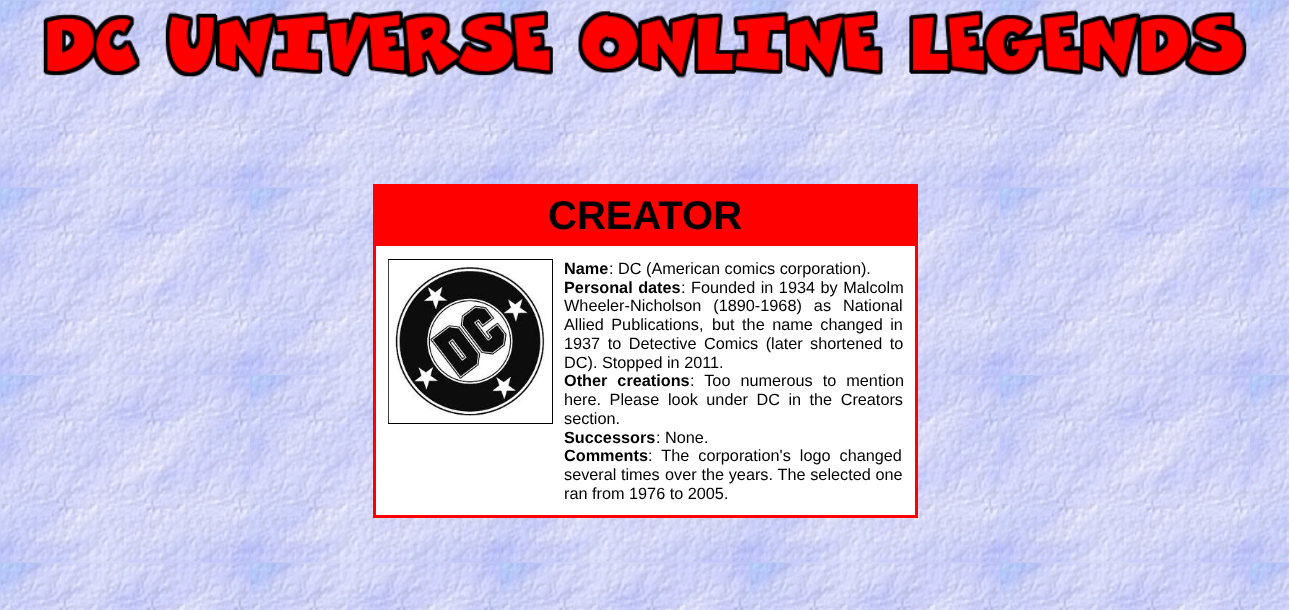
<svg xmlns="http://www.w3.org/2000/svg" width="1289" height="610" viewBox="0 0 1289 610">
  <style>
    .t1 { font: bold 40px Liberation Sans; fill: #000; }
    .t2 { font: bold 16.25px Liberation Sans; fill: #000; }
    .t3 { font: 16.25px Liberation Sans; fill: #000; }
  </style>
  <rect width="100%" height="100%" fill="#fff"/>
  <image x="0" y="0" width="1289" height="610" href="images/1.png"/>
  <image x="43" y="10" width="1204" height="69" href="images/2.png"/>
  <rect x="373" y="184" width="545" height="3" fill="#f00"/>
  <rect x="373" y="245" width="545" height="1" fill="#f00"/>
  <rect x="915" y="184" width="3" height="334" fill="#f00"/>
  <rect x="373" y="515" width="545" height="3" fill="#f00"/>
  <rect x="373" y="184" width="3" height="334" fill="#f00"/>
  <rect x="376" y="187" width="539" height="58" fill="#f00"/>
  <text x="548" y="229" class="t1">CREATOR</text>
  <rect x="376" y="246" width="539" height="269" fill="#fff"/>
  <rect x="388.5" y="259.5" width="164" height="164" fill="none" stroke="#000"/>
  <image x="388" y="260" width="157" height="163" href="images/3.png"/>
  <text x="564" y="274" class="t2">Name</text>
  <text x="609" y="274" class="t3">: DC (American comics corporation).</text>
  <text x="564" y="293" word-spacing="1" class="t2">Personal dates</text>
  <text x="681" y="293" word-spacing="1" class="t3">: Founded in 1934 by Malcolm</text>
  <text x="564" y="311" word-spacing="7.5" class="t3">Wheeler-Nicholson (1890-1968) as National</text>
  <text x="564" y="330" word-spacing="3" class="t3">Allied Publications,</text>
  <text x="712" y="330" word-spacing="3" class="t3">but the name changed in</text>
  <text x="564" y="349" word-spacing="3" class="t3">1937 to Detective Comics (later</text>
  <text x="810" y="349" word-spacing="3" class="t3">shortened to</text>
  <text x="564" y="368" class="t3">DC). Stopped in 2011.</text>
  <text x="564" y="386" word-spacing="5.5" class="t2">Other creations</text>
  <text x="690" y="386" word-spacing="5.5" class="t3">: Too numerous to mention</text>
  <text x="564" y="405" word-spacing="4" class="t3">here. Please</text>
  <text x="668" y="405" word-spacing="4" class="t3">look under DC in the Creators</text>
  <text x="564" y="424" class="t3">section.</text>
  <text x="564" y="443" class="t2">Successors</text>
  <text x="656" y="443" class="t3">: None.</text>
  <text x="564" y="461" class="t2">Comments</text>
  <text x="648" y="461" word-spacing="4.5" class="t3">: The corporation's logo changed</text>
  <text x="564" y="480" class="t3">several times</text>
  <text x="665" y="480" word-spacing="0.25" class="t3">over the years. The selected one</text>
  <text x="564" y="499" class="t3">ran from 1976 to 2005.</text>
</svg>
